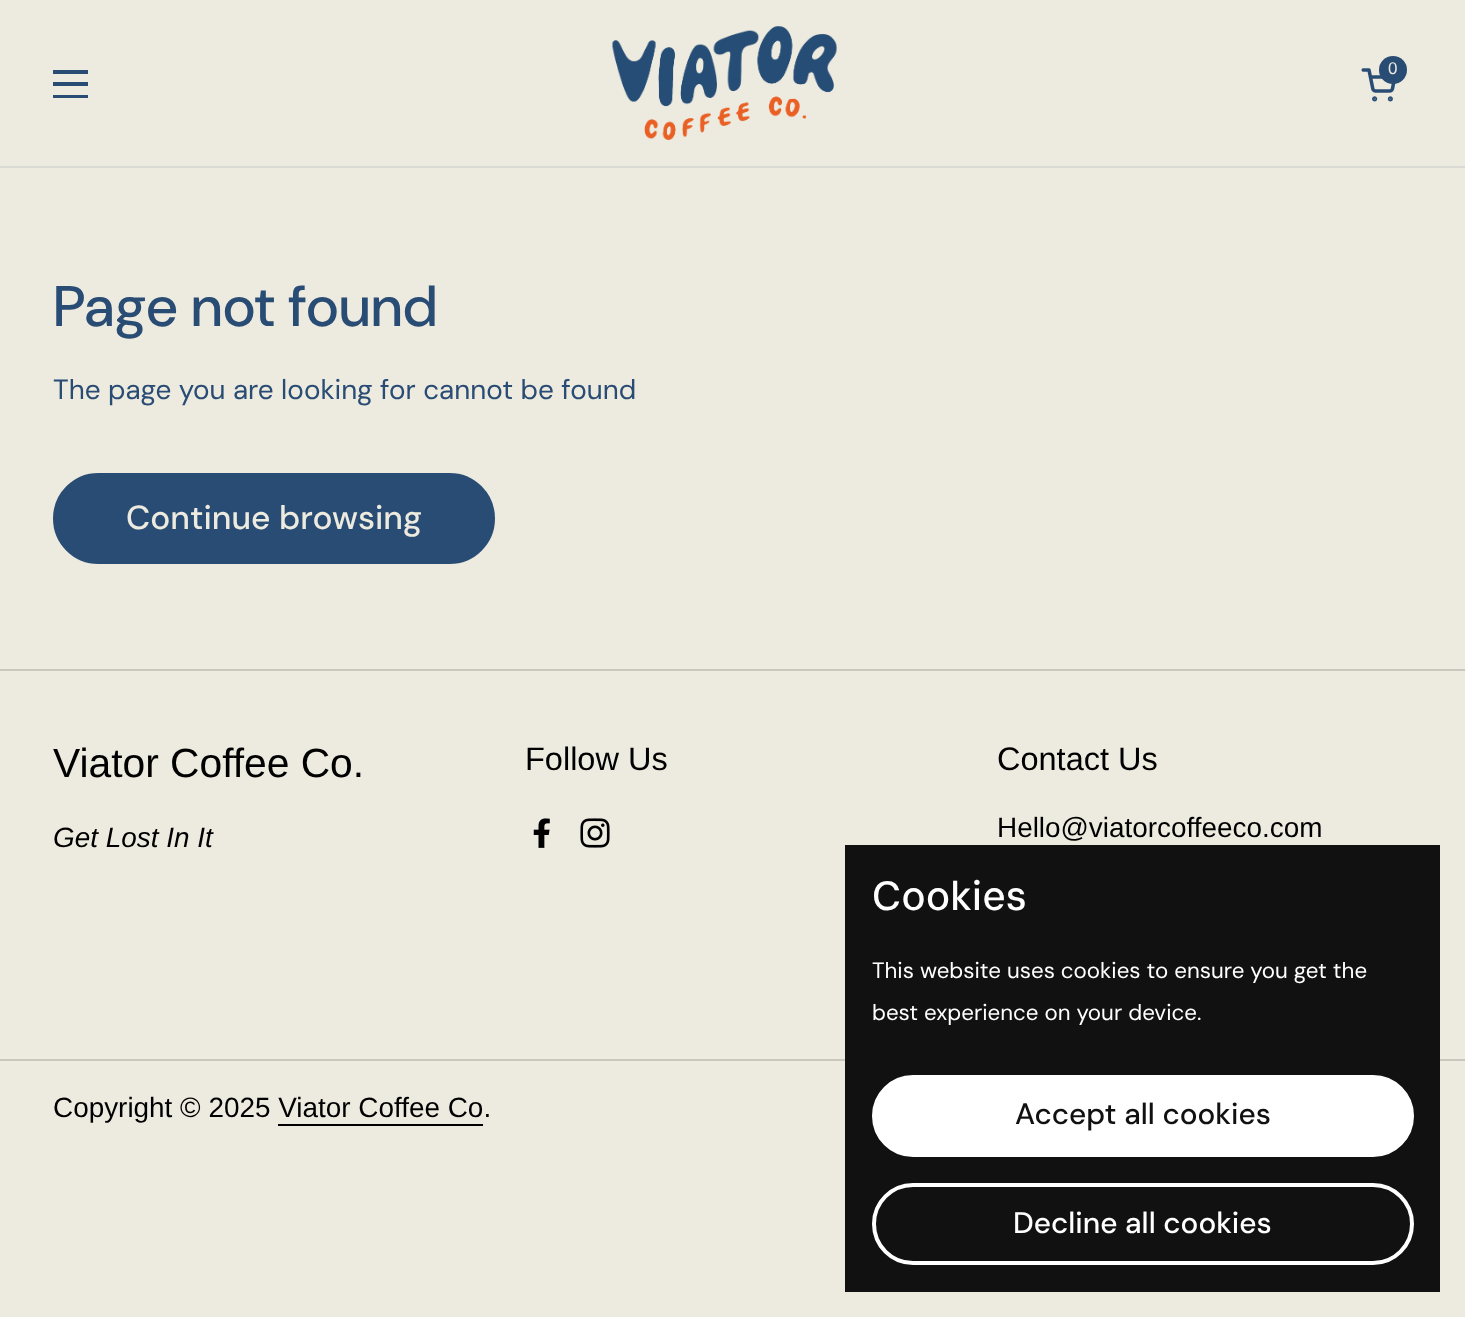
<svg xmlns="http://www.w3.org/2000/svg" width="1465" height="1317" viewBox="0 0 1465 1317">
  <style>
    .t1 { font: 17px Liberation Sans; fill: #edeadf; }
    .t2 { font: 500 57.25px DM Sans; fill: #294c74; }
    .t3 { font: 27.9px DM Sans; fill: #294c74; }
    .t4 { font: 500 33.5px 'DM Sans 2'; fill: #edeadf; }
    .t5 { font: 40.75px Liberation Sans; fill: #000; }
    .t6 { font: italic 27.9px Liberation Sans; fill: #000; }
    .t7 { font: 32.5px Liberation Sans; fill: #000; }
    .t8 { font: 27.9px Liberation Sans; fill: #000; }
    .t9 { font: 500 40.75px 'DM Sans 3'; fill: #fff; }
    .t10 { font: 22.3px 'DM Sans 2'; fill: #fff; }
    .t11 { font: 500 29.75px 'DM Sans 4'; fill: #111; }
    .t12 { font: 500 29.75px 'DM Sans 4'; fill: #fff; }
  </style>
  <rect width="100%" height="100%" fill="#edeadf"/>
  <rect x="0" y="166" width="1465" height="2" fill="#d9dad4"/>
  <image x="612" y="26" width="225" height="114" href="images/1.png"/>
  <image x="1361" y="68" width="35" height="34" href="images/2.png"/>
  <circle cx="1393" cy="70" r="14" fill="#294c74"/>
  <text x="1388" y="74" class="t1">0</text>
  <rect x="53" y="70" width="35" height="4" fill="#294c74"/>
  <rect x="53" y="82" width="35" height="4" fill="#294c74"/>
  <rect x="53" y="95" width="35" height="3" fill="#294c74"/>
  <text x="53" y="326" class="t2">Page not found</text>
  <text x="53" y="399" class="t3">The page you are looking for cannot be found</text>
  <rect x="55" y="475" width="438" height="87" rx="43.5" fill="#294c74" stroke="#294c74" stroke-width="4"/>
  <text x="126" y="529" class="t4">Continue browsing</text>
  <rect x="0" y="669" width="1465" height="2" fill="#c9c7be"/>
  <text x="53" y="777" class="t5">Viator Coffee Co.</text>
  <text x="53" y="847" class="t6">Get Lost In It</text>
  <text x="525" y="770" class="t7">Follow Us</text>
  <image x="533" y="818" width="17" height="30" href="images/3.png"/>
  <image x="580" y="818" width="30" height="30" href="images/4.png"/>
  <text x="997" y="770" class="t7">Contact Us</text>
  <text x="997" y="837" class="t8">Hello@viatorcoffeeco.com</text>
  <rect x="0" y="1059" width="1465" height="2" fill="#c9c7be"/>
  <text x="53" y="1117" class="t8">Copyright © 2025 Viator Coffee Co.</text>
  <rect x="278" y="1124" width="205" height="2" fill="#000"/>
  <rect x="845" y="845" width="595" height="447" fill="#111"/>
  <text x="872" y="910" class="t9">Cookies</text>
  <text x="872" y="978" class="t10">This website uses cookies to ensure you get the</text>
  <text x="872" y="1020" class="t10">best experience on your device.</text>
  <rect x="874" y="1077" width="538" height="78" rx="39" fill="#fff" stroke="#fff" stroke-width="4"/>
  <text x="1015" y="1124" class="t11">Accept all cookies</text>
  <rect x="874" y="1185" width="538" height="78" rx="39" fill="none" stroke="#fff" stroke-width="4"/>
  <text x="1013" y="1233" class="t12">Decline all cookies</text>
</svg>
